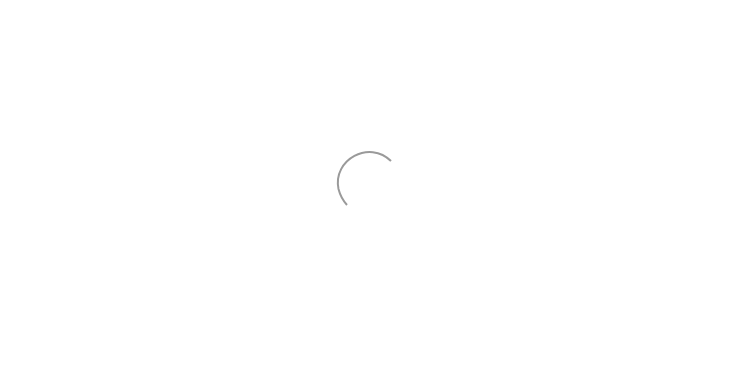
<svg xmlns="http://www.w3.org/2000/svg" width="733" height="381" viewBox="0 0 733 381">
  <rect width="100%" height="100%" fill="#fff"/>
  <path d="M347 205C343 200.5 340 195 338.5 189C332.5 159.5 369.5 139.5 391 161" fill="none" stroke="#9a9a9a" stroke-width="2"/>
</svg>
